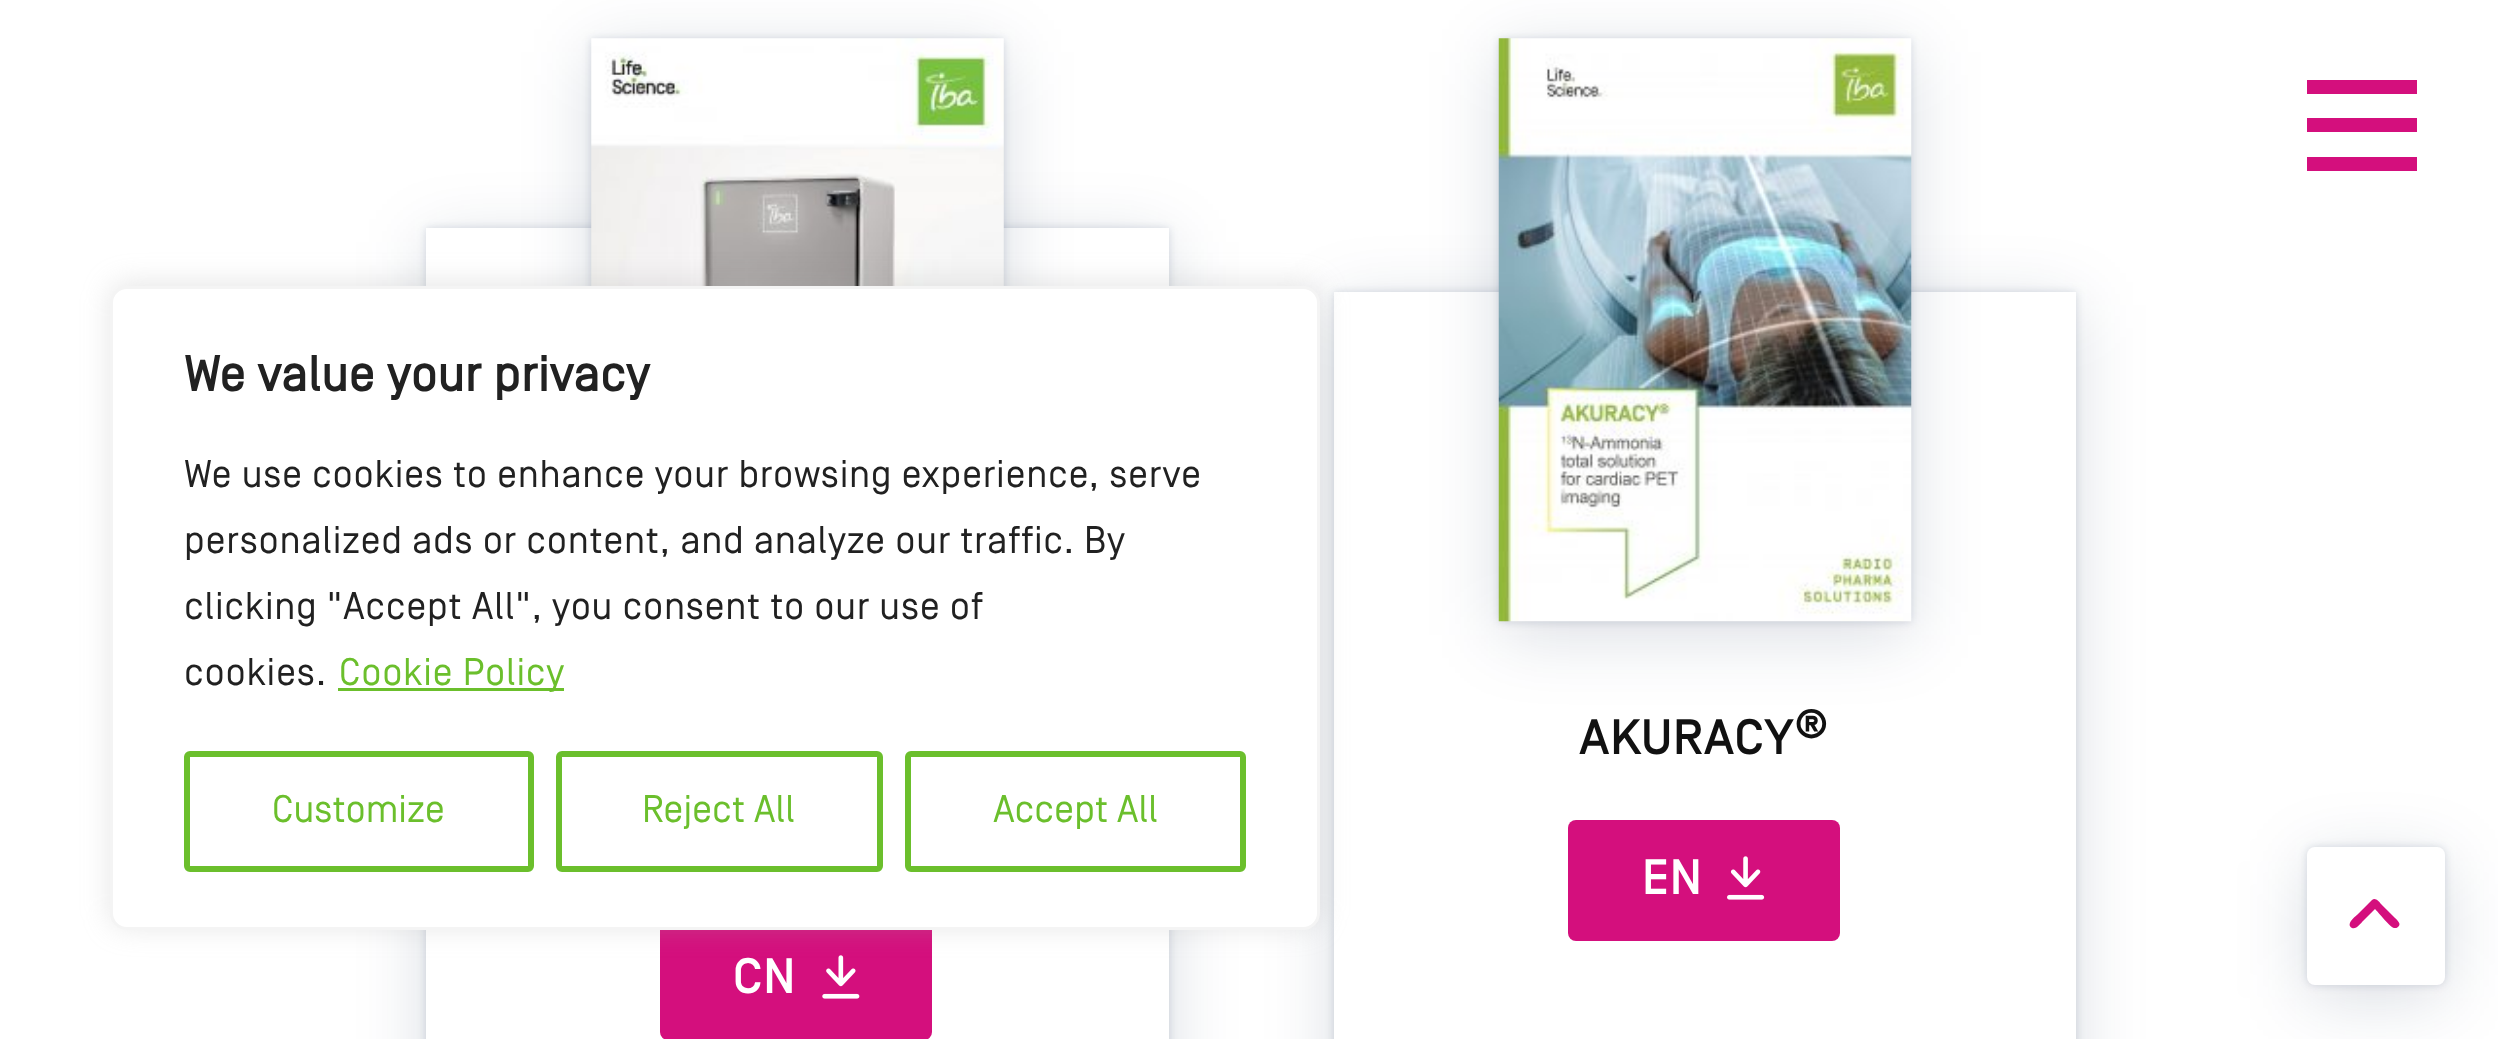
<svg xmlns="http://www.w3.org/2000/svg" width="2498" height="1039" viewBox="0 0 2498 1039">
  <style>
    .t1 { font: bold 49.5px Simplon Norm; letter-spacing: 0.7px; fill: #212121; }
    .t2 { font: 38.5px Simplon Norm; letter-spacing: 0.7px; fill: #212121; }
    .t3 { font: 38.5px Simplon Norm; letter-spacing: 0.7px; fill: #6bbf2c; }
    .t4 { font: 38.5px Simplon Norm; fill: #6bbf2c; }
    .t5 { font: 500 49.5px Simplon Norm; letter-spacing: 0.7px; fill: #111; }
    .t6 { font: 500 41px Simplon Norm; letter-spacing: 0.7px; fill: #111; }
    .t7 { font: 500 49.5px Simplon Norm; letter-spacing: 0.7px; fill: #fff; }
  </style>
  <defs>
    <clipPath id="clip1"><path d="M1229 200H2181V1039H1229ZM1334 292H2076V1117H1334Z" clip-rule="evenodd"/></clipPath>
    <clipPath id="clip2"><path d="M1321 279H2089V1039H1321ZM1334 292H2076V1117H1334Z" clip-rule="evenodd"/></clipPath>
  </defs>
  <rect width="100%" height="100%" fill="#fff"/>
  <rect x="2307" y="80" width="110" height="14" fill="#d40f7d"/>
  <rect x="2307" y="118" width="110" height="14" fill="#d40f7d"/>
  <rect x="2307" y="157" width="110" height="14" fill="#d40f7d"/>
  <rect x="426" y="228" width="743" height="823" fill="#091e4226" filter="blur(4px)"/>
  <rect x="426" y="242" width="743" height="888" fill="#091e4226" filter="blur(34.5px)"/>
  <rect x="426" y="228" width="743" height="811" fill="#fff"/>
  <rect x="591" y="39" width="413" height="519" fill="#091e4226" filter="blur(4px)"/>
  <rect x="591" y="52" width="413" height="520" fill="#091e4226" filter="blur(34.5px)"/>
  <image x="591" y="38" width="413" height="248" href="images/3.png"/>
  <rect x="660" y="919" width="272" height="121" rx="8" fill="#d40f7d"/>
  <image x="822" y="955" width="38" height="44" href="images/4.png"/>
  <rect x="110" y="283" width="1210" height="644" rx="17" fill="#acabab4d" filter="blur(14px)"/>
  <g clip-path="url(#clip1)">
    <rect x="1334" y="305" width="742" height="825" fill="#091e4226" filter="blur(34.5px)"/>
  </g>
  <rect x="111.5" y="287.5" width="1207" height="641" rx="15.5" fill="#fff" stroke="#f4f4f4" stroke-width="3"/>
  <text x="184" y="391" class="t1">We value your privacy</text>
  <text x="184" y="487" class="t2">We use cookies to enhance your browsing experience, serve</text>
  <text x="184" y="553" class="t2">personalized ads or content, and analyze our traffic. By</text>
  <text x="184" y="619" class="t2">clicking "Accept All", you consent to our use of</text>
  <text x="184" y="685" class="t2">cookies.</text>
  <rect x="338" y="688" width="226" height="3" fill="#6bbf2c"/>
  <text x="339" y="685" class="t3">Cookie Policy</text>
  <rect x="187" y="754" width="344" height="115" rx="3" fill="none" stroke="#6bbf2c" stroke-width="6"/>
  <text x="272" y="822" class="t4">Customize</text>
  <rect x="559" y="754" width="321" height="115" rx="3" fill="none" stroke="#6bbf2c" stroke-width="6"/>
  <text x="642" y="822" class="t4">Reject All</text>
  <rect x="908" y="754" width="335" height="115" rx="3" fill="none" stroke="#6bbf2c" stroke-width="6"/>
  <text x="993" y="822" class="t4">Accept All</text>
  <rect x="1499" y="39" width="412" height="583" fill="#091e4226" filter="blur(4px)"/>
  <rect x="1499" y="52" width="412" height="583" fill="#091e4226" filter="blur(34.5px)"/>
  <g clip-path="url(#clip2)">
    <rect x="1334" y="292" width="742" height="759" fill="#091e4226" filter="blur(4px)"/>
  </g>
  <image x="1498" y="38" width="414" height="584" href="images/1.png"/>
  <text x="1579" y="754" class="t5">AKURACY</text>
  <text x="1795" y="738" class="t6">®</text>
  <rect x="1568" y="820" width="272" height="121" rx="8" fill="#d40f7d"/>
  <text x="1642" y="894" class="t7">EN</text>
  <image x="1727" y="856" width="38" height="44" href="images/2.png"/>
  <text x="733" y="993" class="t7">CN</text>
  <rect x="2307" y="847" width="138" height="138" rx="8" fill="#091e4226" filter="blur(4px)"/>
  <rect x="2307" y="861" width="138" height="137" rx="8" fill="#091e4226" filter="blur(34.5px)"/>
  <rect x="2307" y="847" width="138" height="138" rx="8" fill="#fff"/>
  <path d="M2372 900C2375 897 2379 901 2381 904L2395 918C2397 920 2402 924 2398 927C2397 928 2396 928 2394 928C2391 928 2378 912 2375 909L2363 921C2361 923 2356 930 2352 928C2345 924 2356 916 2358 914Z" fill="#d40f7d"/>
</svg>
